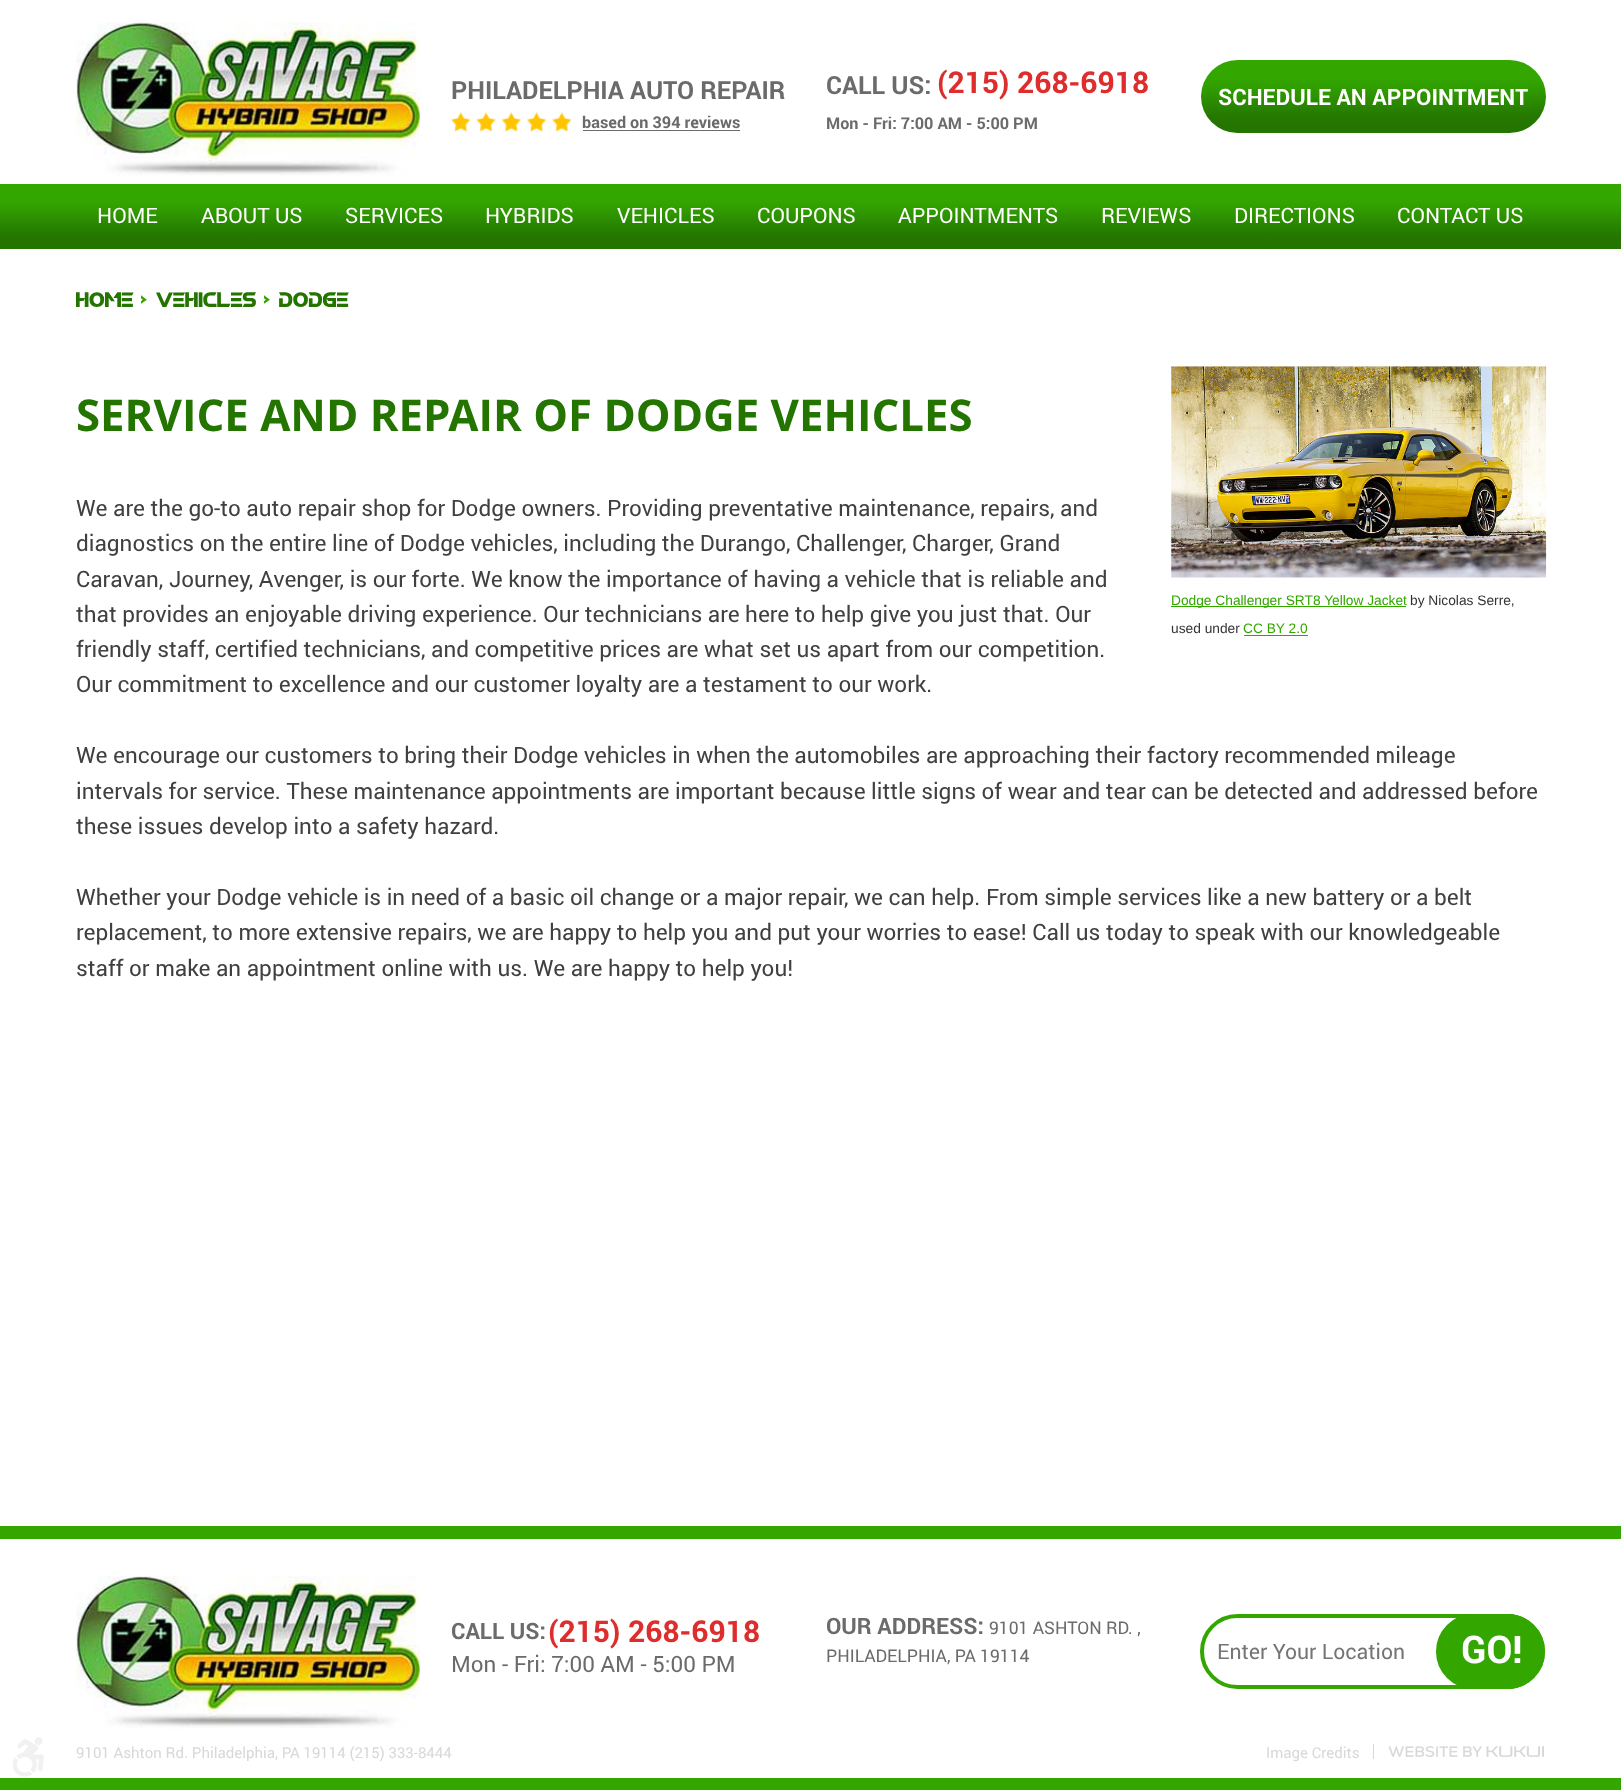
<svg xmlns="http://www.w3.org/2000/svg" width="1621" height="1790" viewBox="0 0 1621 1790">
  <style>
    .t1 { font: bold 25px Roboto; fill: #6b6b6b; }
    .t2 { font: bold 16.25px Roboto; fill: #6b6b6b; }
    .t3 { font: bold 30px Roboto; fill: #dd2d2d; }
    .t4 { font: bold 22.5px Roboto; fill: #fff; }
    .t5 { font: 21.25px Roboto; fill: #fff; }
    .t6 { font: 30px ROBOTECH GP; fill: #247400; }
    .t7 { font: 30px ROBOTECH GP; fill: #33a600; }
    .t8 { font: bold 43.75px Open Sans; fill: #247400; }
    .t9 { font: 22.5px Roboto; fill: #404040; }
    .t10 { font: 13.75px Liberation Sans; fill: #33a600; }
    .t11 { font: 13.75px Liberation Sans; fill: #333; }
    .t12 { font: bold 22.5px Roboto; fill: #6b6b6b; }
    .t13 { font: 22.5px Roboto; fill: #6b6b6b; }
    .t14 { font: 17.5px Roboto; fill: #6b6b6b; }
    .t15 { font: 21.25px Roboto; fill: #757575; }
    .t16 { font: bold 38px Roboto; fill: #fff; }
    .t17 { font: 15px Roboto; fill: #d8d8d8; }
  </style>
  <defs>
    <linearGradient id="g1" gradientUnits="userSpaceOnUse" x1="1374" y1="60" x2="1374" y2="133"><stop offset="0" stop-color="#33a600"/><stop offset="0.25" stop-color="#33a600"/><stop offset="0.37" stop-color="#319e00"/><stop offset="0.78" stop-color="#257700"/><stop offset="1" stop-color="#247400"/></linearGradient>
    <linearGradient id="g2" gradientUnits="userSpaceOnUse" x1="811" y1="184" x2="811" y2="249"><stop offset="0" stop-color="#33a600"/><stop offset="0.25" stop-color="#33a600"/><stop offset="0.37" stop-color="#319e00"/><stop offset="0.78" stop-color="#257700"/><stop offset="1" stop-color="#247400"/></linearGradient>
  </defs>
  <rect width="100%" height="100%" fill="#fff"/>
  <image x="76" y="22" width="344" height="154" href="images/1.png"/>
  <text x="451" y="99" class="t1">PHILADELPHIA AUTO REPAIR</text>
  <image x="451" y="112" width="121" height="20" href="images/2.png"/>
  <text x="582" y="128" class="t2">based on 394 reviews</text>
  <rect x="583" y="130" width="157" height="1" fill="#6b6b6b"/>
  <text x="826" y="94" class="t1">CALL US:</text>
  <text x="937" y="93" class="t3">(215) 268-6918</text>
  <text x="826" y="129" class="t2">Mon - Fri: 7:00 AM - 5:00 PM</text>
  <rect x="1201" y="60" width="345" height="73" rx="36.5" fill="url(#g1)"/>
  <text x="1218" y="105" class="t4">SCHEDULE AN APPOINTMENT</text>
  <rect x="0" y="184" width="1621" height="65" fill="url(#g2)"/>
  <text x="97" y="223" class="t5">HOME</text>
  <text x="201" y="223" class="t5">ABOUT US</text>
  <text x="345" y="223" class="t5">SERVICES</text>
  <text x="485" y="223" class="t5">HYBRIDS</text>
  <text x="617" y="223" class="t5">VEHICLES</text>
  <text x="757" y="223" class="t5">COUPONS</text>
  <text x="898" y="223" class="t5">APPOINTMENTS</text>
  <text x="1101" y="223" class="t5">REVIEWS</text>
  <text x="1234" y="223" class="t5">DIRECTIONS</text>
  <text x="1397" y="223" class="t5">CONTACT US</text>
  <text x="76" y="307" class="t6">HOME</text>
  <text x="141" y="307" class="t7">&gt;</text>
  <text x="156" y="307" class="t6">VEHICLES</text>
  <text x="264" y="307" class="t7">&gt;</text>
  <text x="279" y="307" class="t6">DODGE</text>
  <text x="76" y="431" class="t8">SERVICE AND REPAIR OF DODGE VEHICLES</text>
  <text x="76" y="516" class="t9">We are the go-to auto repair shop for Dodge owners. Providing preventative maintenance, repairs, and</text>
  <text x="76" y="551" class="t9">diagnostics on the entire line of Dodge vehicles, including the Durango, Challenger, Charger, Grand</text>
  <text x="76" y="587" class="t9">Caravan, Journey, Avenger, is our forte. We know the importance of having a vehicle that is reliable and</text>
  <text x="76" y="622" class="t9">that provides an enjoyable driving experience. Our technicians are here to help give you just that. Our</text>
  <text x="76" y="657" class="t9">friendly staff, certified technicians, and competitive prices are what set us apart from our competition.</text>
  <text x="76" y="692" class="t9">Our commitment to excellence and our customer loyalty are a testament to our work.</text>
  <image x="1171" y="366" width="376" height="212" href="images/3.png"/>
  <rect x="1171" y="606" width="235" height="1" fill="#33a600"/>
  <text x="1171" y="605" class="t10">Dodge Challenger SRT8 Yellow Jacket</text>
  <text x="1410" y="605" class="t11">by Nicolas Serre,</text>
  <text x="1171" y="633" class="t11">used under</text>
  <text x="1243" y="633" class="t10">CC BY 2.0</text>
  <rect x="1244" y="635" width="64" height="1" fill="#33a600"/>
  <text x="76" y="763" class="t9">We encourage our customers to bring their Dodge vehicles in when the automobiles are approaching their factory recommended mileage</text>
  <text x="76" y="799" class="t9">intervals for service. These maintenance appointments are important because little signs of wear and tear can be detected and addressed before</text>
  <text x="76" y="834" class="t9">these issues develop into a safety hazard.</text>
  <text x="76" y="905" class="t9">Whether your Dodge vehicle is in need of a basic oil change or a major repair, we can help. From simple services like a new battery or a belt</text>
  <text x="76" y="940" class="t9">replacement, to more extensive repairs, we are happy to help you and put your worries to ease! Call us today to speak with our knowledgeable</text>
  <text x="76" y="976" class="t9">staff or make an appointment online with us. We are happy to help you!</text>
  <image x="13" y="1737" width="31" height="40" href="images/4.png"/>
  <rect x="0" y="1526" width="1621" height="13" fill="#33a600"/>
  <rect x="0" y="1778" width="1621" height="12" fill="#33a600"/>
  <image x="76" y="1576" width="344" height="153" href="images/5.png"/>
  <text x="451" y="1639" class="t12">CALL US:</text>
  <text x="548" y="1642" class="t3">(215) 268-6918</text>
  <text x="451" y="1672" class="t13">Mon - Fri: 7:00 AM - 5:00 PM</text>
  <text x="826" y="1634" class="t12">OUR ADDRESS:</text>
  <text x="989" y="1634" class="t14">9101 ASHTON RD. ,</text>
  <text x="826" y="1662" class="t14">PHILADELPHIA, PA 19114</text>
  <rect x="1202" y="1616" width="341" height="71" rx="35.5" fill="none" stroke="#33a600" stroke-width="4"/>
  <text x="1217" y="1659" class="t15">Enter Your Location</text>
  <rect x="1438" y="1616" width="105" height="71" rx="35.5" fill="#33a600" stroke="#33a600" stroke-width="4"/>
  <text x="1461" y="1663" class="t16">GO!</text>
  <text x="76" y="1758" class="t17">9101 Ashton Rd. Philadelphia, PA 19114 (215) 333-8444</text>
  <rect x="1373" y="1744" width="1" height="15" fill="#d8d8d8"/>
  <text x="1266" y="1758" class="t17">Image Credits</text>
  <image x="1388" y="1746" width="156" height="11" href="images/6.png"/>
</svg>
